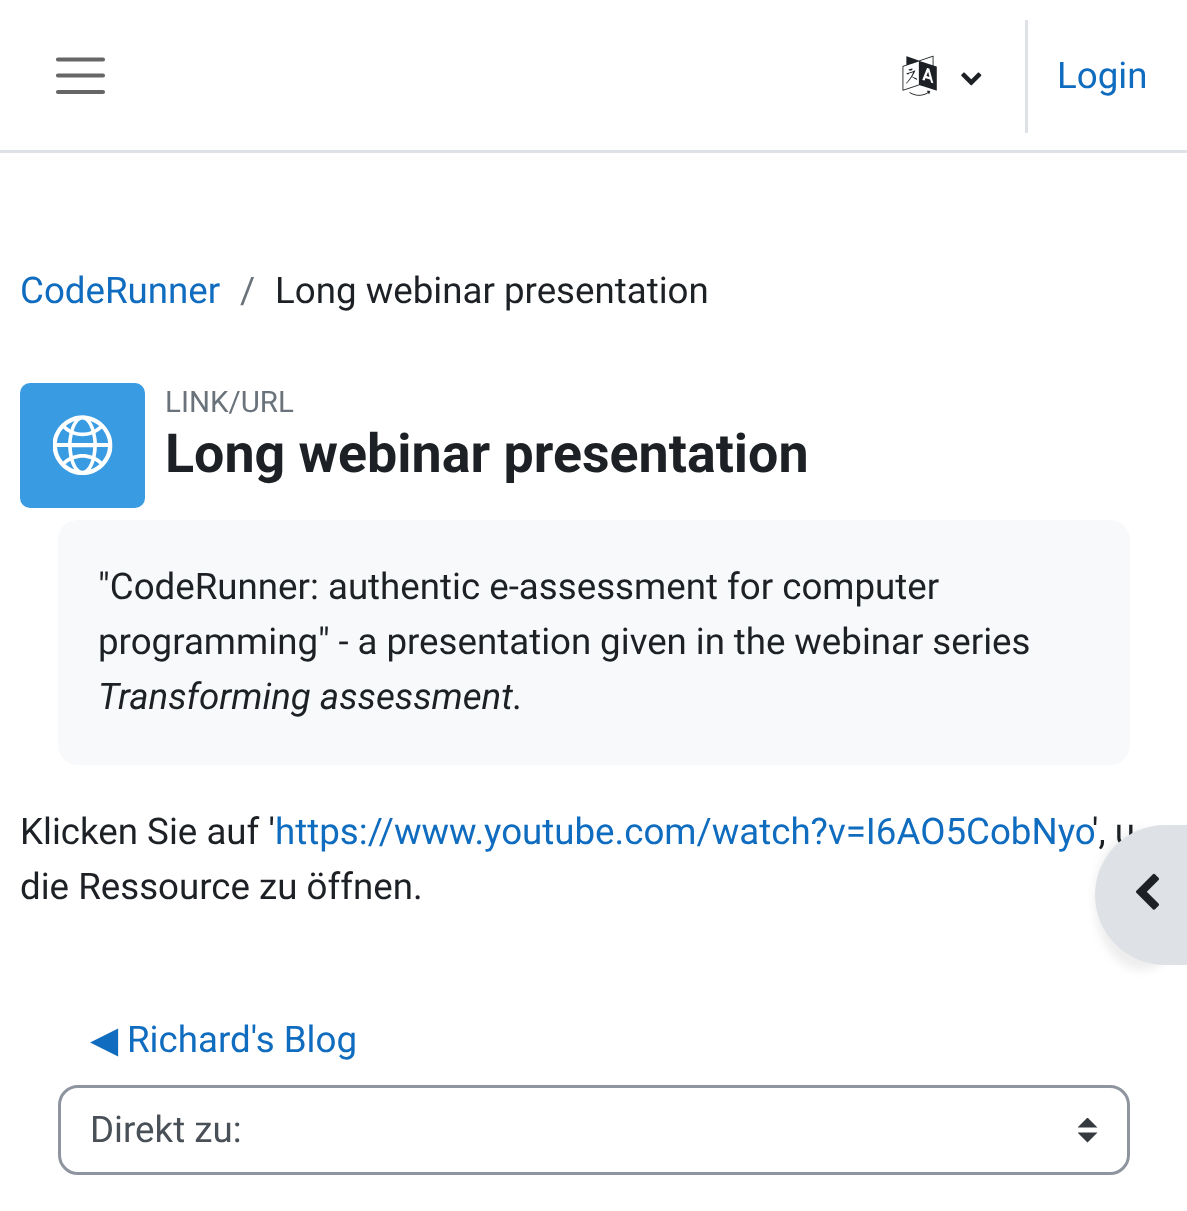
<svg xmlns="http://www.w3.org/2000/svg" width="1187" height="1211" viewBox="0 0 1187 1211">
  <style>
    .t1 { font: 36.7px Roboto; fill: #0f6cbf; }
    .t2 { font: 36.7px Roboto; fill: #6a737b; }
    .t3 { font: 36.7px Roboto; fill: #1d2125; }
    .t4 { font: 29.5px Roboto; fill: #6a737b; }
    .t5 { font: bold 53.75px Roboto; fill: #1d2125; }
    .t6 { font: italic 36.7px Roboto; fill: #1d2125; }
    .t7 { font: 36.7px DejaVu Sans; fill: #0f6cbf; }
    .t8 { font: 36.7px Roboto; fill: #495057; }
  </style>
  <defs>
    <clipPath id="clip1"><rect x="1078" y="1118" width="20" height="25"/></clipPath>
  </defs>
  <rect width="100%" height="100%" fill="#fff"/>
  <rect x="0" y="150" width="1187" height="3" fill="#dee2e6"/>
  <path d="M58 59.5H103M58 75.5H103M58 92H103" fill="none" stroke="#666" stroke-width="4.1" stroke-linecap="round"/>
  <image x="902" y="55" width="35" height="41" href="images/1.png"/>
  <image x="961" y="72" width="21" height="14" href="images/2.png"/>
  <rect x="1025" y="20" width="3" height="113" fill="#dee2e6"/>
  <text x="1057" y="88" class="t1">Login</text>
  <text x="20" y="303" class="t1">CodeRunner</text>
  <text x="240" y="303" class="t2">/</text>
  <text x="275" y="303" class="t3">Long webinar presentation</text>
  <rect x="20" y="383" width="125" height="125" rx="10" fill="#399be2"/>
  <image x="53" y="415" width="60" height="60" href="images/3.png"/>
  <text x="165" y="412" class="t4">LINK/URL</text>
  <text x="165" y="472" class="t5">Long webinar presentation</text>
  <rect x="58" y="520" width="1072" height="245" rx="20" fill="#f8f9fa"/>
  <text x="98" y="599" class="t3">"CodeRunner: authentic e-assessment for computer</text>
  <text x="98" y="654" word-spacing="-0.25" class="t3">programming" - a presentation given in the webinar series</text>
  <text x="98" y="709" class="t6">Transforming assessment</text>
  <text x="512" y="709" class="t3">.</text>
  <text x="20" y="844" class="t3">Klicken Sie auf '</text>
  <text x="275" y="844" class="t1">https://www.youtube.com/watch?v=I6AO5CobNyo</text>
  <text x="1092" y="844" class="t3">', u</text>
  <text x="20" y="899" class="t3">die Ressource zu öffnen.</text>
  <text x="90" y="1052" class="t7">◀︎</text>
  <text x="127" y="1052" class="t1">Richard's Blog</text>
  <g clip-path="url(#clip1)">
    <path d="M1087.5 1117.5L1077.5 1127.5H1097.5ZM1087.5 1142.5L1077.5 1132.5H1097.5Z" fill="#343a40"/>
  </g>
  <rect x="59.5" y="1086.5" width="1069" height="87" rx="18.5" fill="none" stroke="#8f959e" stroke-width="3"/>
  <text x="90" y="1142" class="t8">Direkt zu:</text>
  <rect x="1095" y="830" width="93" height="140" rx="70" fill="#00000012" filter="blur(5px)"/>
  <path d="M1165 825H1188V965H1165C1126.5 965 1095 933.5 1095 895C1095 856.5 1126.5 825 1165 825Z" fill="#dee2e6"/>
  <image x="1136" y="873" width="23" height="37" href="images/4.png"/>
</svg>
